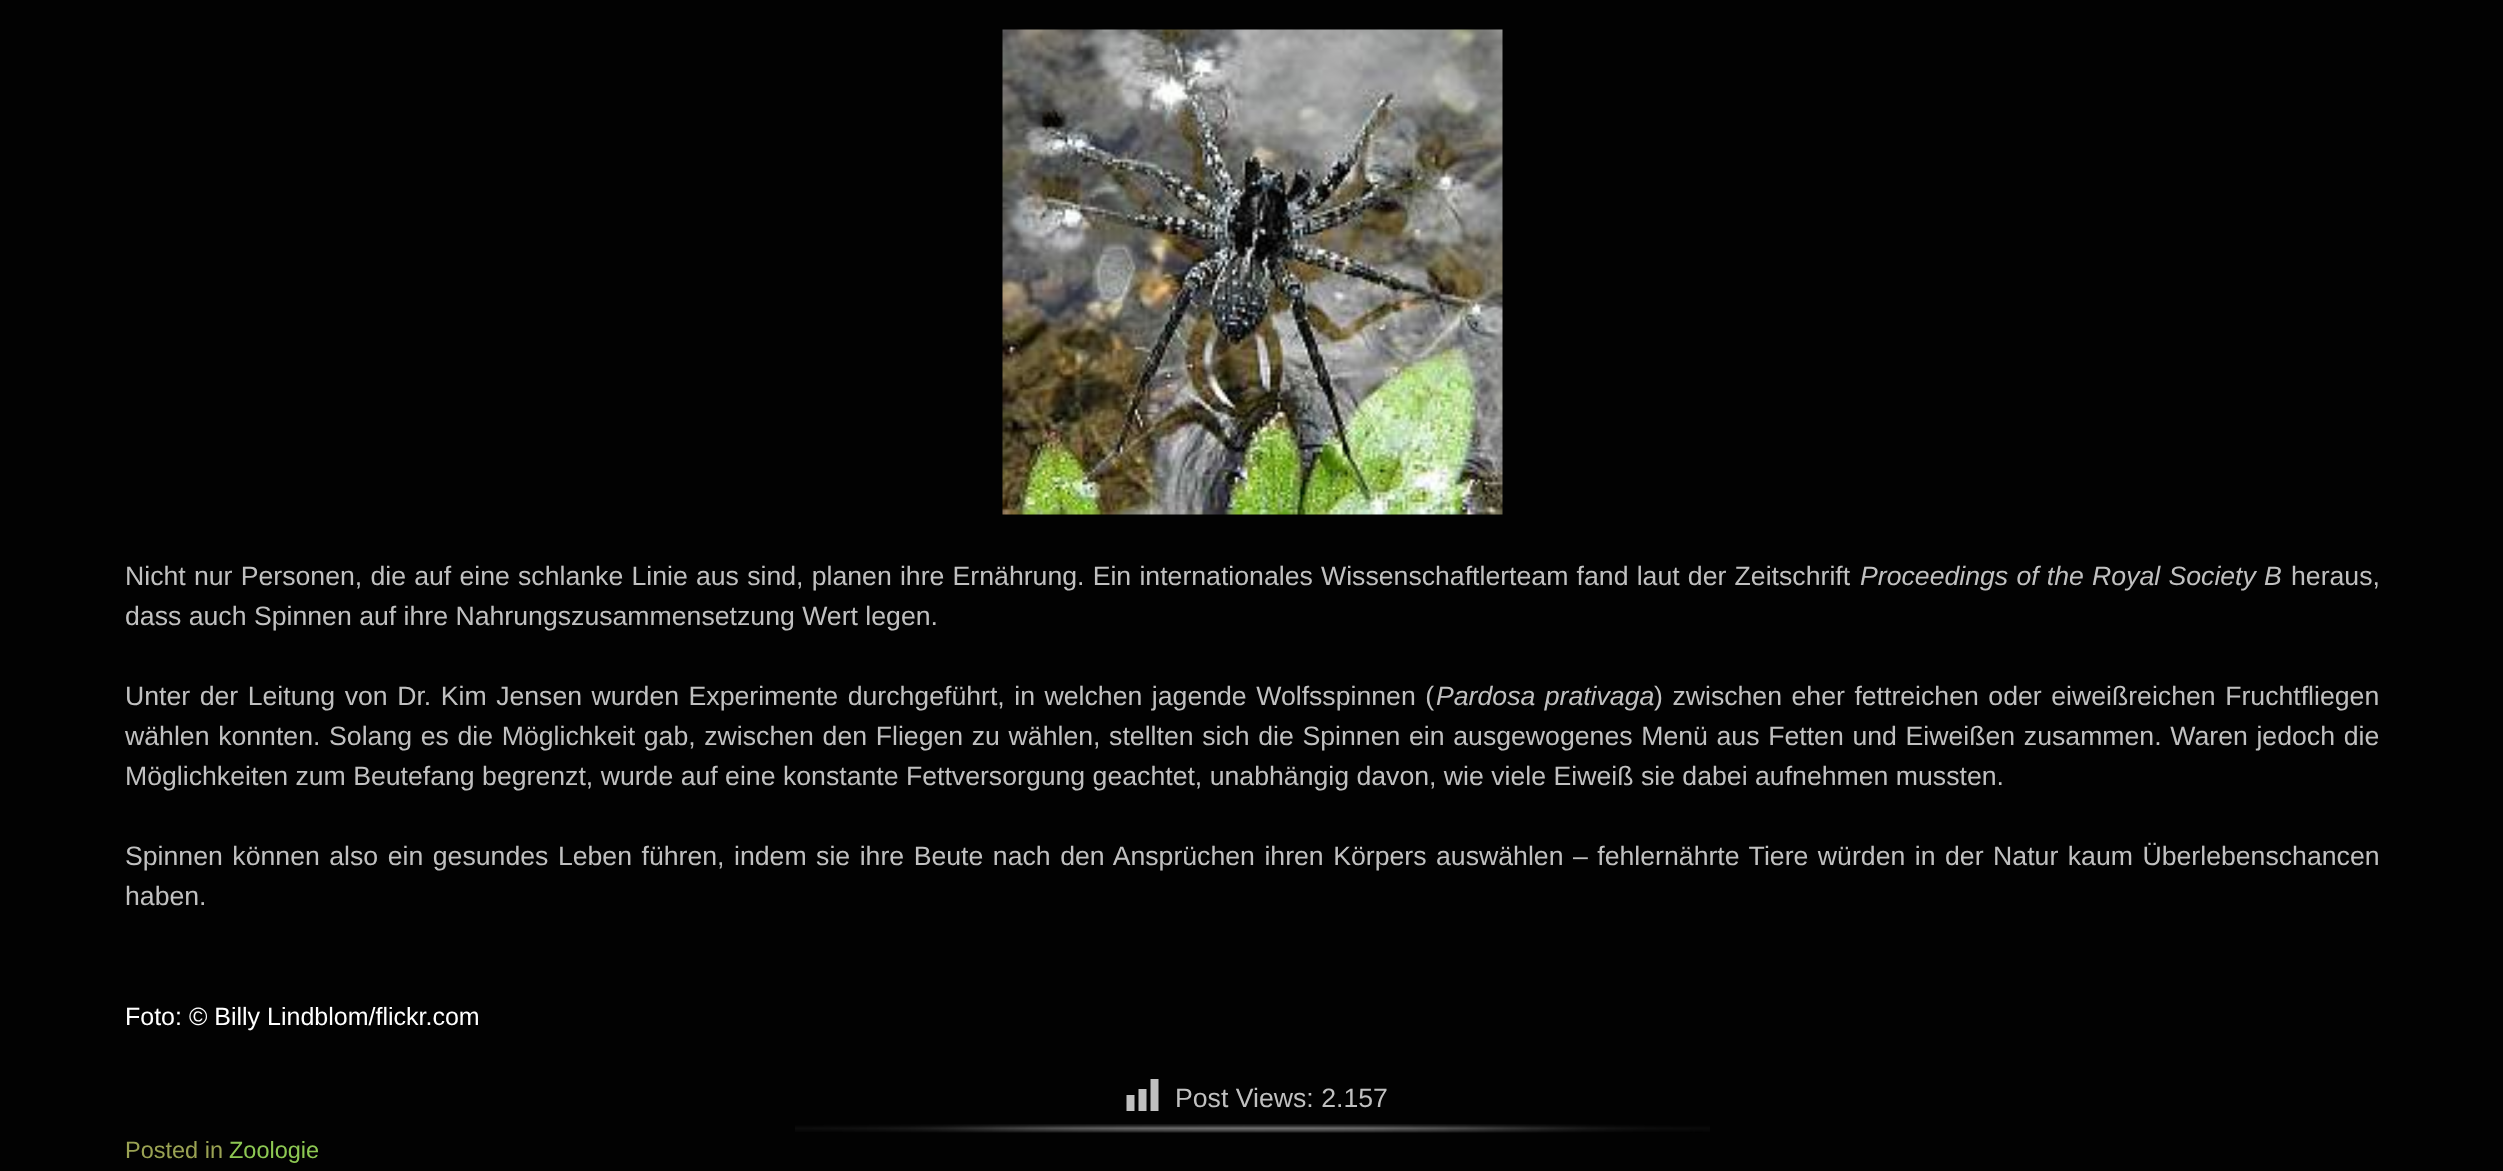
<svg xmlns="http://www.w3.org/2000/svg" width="2503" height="1171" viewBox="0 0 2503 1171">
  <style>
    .t1 { font: 26.67px Liberation Sans; fill: #c0c0c0; }
    .t2 { font: italic 26.67px Liberation Sans; fill: #c0c0c0; }
    .t3 { font: 25px Liberation Sans; fill: #fff; }
    .t4 { font: 23.5px Liberation Sans; fill: #9aa253; }
    .t5 { font: 23.5px Liberation Sans; fill: #8dc853; }
  </style>
  <rect width="100%" height="100%" fill="#020202"/>
  <image x="1002" y="29" width="501" height="486" href="images/1.png"/>
  <text x="125" y="585" word-spacing="0.8" class="t1">Nicht nur Personen, die auf eine schlanke Linie aus sind, planen ihre Ernährung. Ein internationales Wissenschaftlerteam fand laut der Zeitschrift</text>
  <text x="1860" y="585" word-spacing="0.8" class="t2">Proceedings of the Royal Society B</text>
  <text x="2291" y="585" class="t1">heraus,</text>
  <text x="125" y="625" class="t1">dass auch Spinnen auf ihre Nahrungszusammensetzung Wert legen.</text>
  <text x="125" y="705" word-spacing="2.1" class="t1">Unter der Leitung von Dr. Kim Jensen wurden Experimente durchgeführt, in welchen jagende Wolfsspinnen (</text>
  <text x="1436" y="705" word-spacing="2" class="t2">Pardosa prativaga</text>
  <text x="1654" y="705" word-spacing="2.1" class="t1">) zwischen eher fettreichen oder eiweißreichen Fruchtfliegen</text>
  <text x="125" y="745" word-spacing="1.25" class="t1">wählen konnten. Solang es die Möglichkeit gab, zwischen den Fliegen zu wählen, stellten sich die Spinnen ein ausgewogenes Menü aus Fetten und Eiweißen zusammen. Waren jedoch die</text>
  <text x="125" y="785" class="t1">Möglichkeiten zum Beutefang begrenzt, wurde auf eine konstante Fettversorgung geachtet, unabhängig davon, wie viele Eiweiß sie dabei aufnehmen mussten.</text>
  <text x="125" y="865" word-spacing="2.1" class="t1">Spinnen können also ein gesundes Leben führen, indem sie ihre Beute nach den Ansprüchen ihren Körpers auswählen – fehlernährte Tiere würden in der Natur kaum Überlebenschancen</text>
  <text x="125" y="905" class="t1">haben.</text>
  <text x="125" y="1025" class="t3">Foto: © Billy Lindblom/flickr.com</text>
  <image x="795" y="1124" width="915" height="9" href="images/2.png"/>
  <path d="M1158.5 1111V1079H1150.5V1111ZM1146.5 1111V1089H1138.5V1111ZM1134.5 1111V1095H1126.5V1111Z" fill="#c0c0c0"/>
  <text x="1175" y="1107" class="t1">Post Views: 2.157</text>
  <text x="125" y="1158" class="t4">Posted in</text>
  <text x="229" y="1158" class="t5">Zoologie</text>
</svg>
